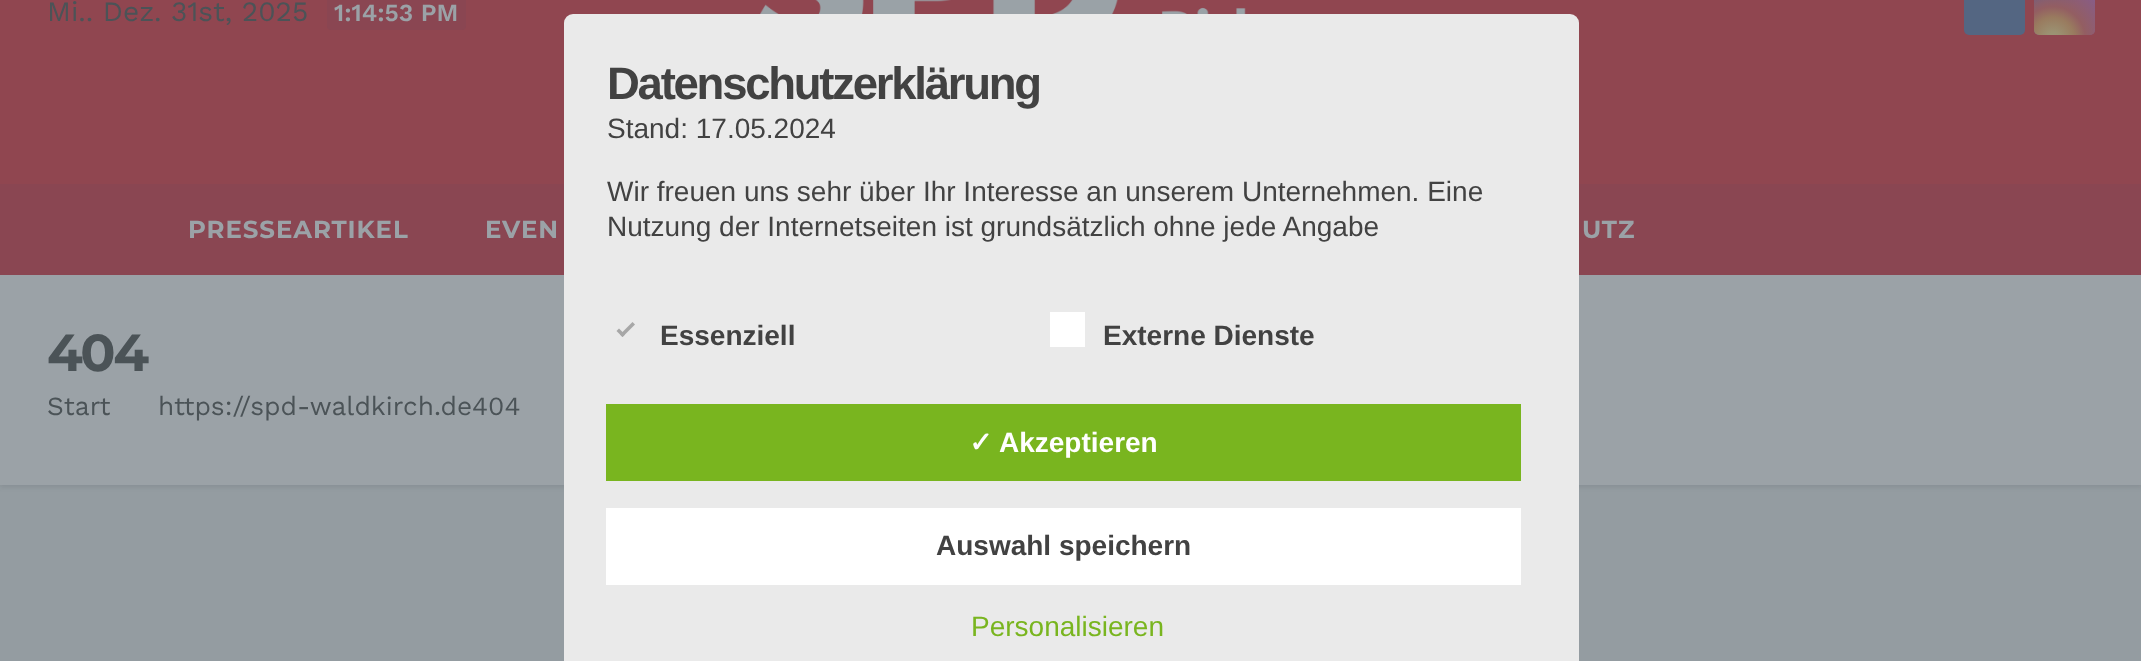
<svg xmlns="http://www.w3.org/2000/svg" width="2141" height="661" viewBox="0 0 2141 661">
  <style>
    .t1 { font: 28px Work Sans; fill: #4b5357; }
    .t2 { font: 600 24.5px Work Sans; fill: #9ba2a7; }
    .t3 { font: bold 24.5px Montserrat; letter-spacing: 0.9px; fill: #9ba2a7; }
    .t4 { font: bold 52px Montserrat; letter-spacing: -2.5px; fill: #4b5357; }
    .t5 { font: 26.25px Work Sans; fill: #4b5357; }
    .t6 { font: bold 45.5px Liberation Sans; letter-spacing: -2.25px; fill: #424242; }
    .t7 { font: 28px Liberation Sans; fill: #424242; }
    .t8 { font: bold 28px Liberation Sans; fill: #424242; }
    .t9 { font: bold 28px DejaVu Sans; fill: #fff; }
    .t10 { font: bold 28px Liberation Sans; fill: #fff; }
    .t11 { font: 28px Liberation Sans; fill: #79b51f; }
  </style>
  <defs>
    <linearGradient id="g1" gradientUnits="userSpaceOnUse" x1="2034" y1="-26" x2="2095" y2="35"><stop offset="0.12" stop-color="#4b6198"/><stop offset="0.58" stop-color="#855c8f"/></linearGradient>
    <radialGradient id="g2" gradientUnits="userSpaceOnUse" cx="2053" cy="39" r="77"><stop offset="0" stop-color="#9b9778"/><stop offset="0.1" stop-color="#9b9071"/><stop offset="0.28" stop-color="#997b5f"/><stop offset="0.42" stop-color="#935e62"/><stop offset="0.82" stop-color="#935e62" stop-opacity="0"/></radialGradient>
  </defs>
  <rect width="100%" height="100%" fill="#949ca1"/>
  <rect x="0" y="0" width="2141" height="184" fill="#904650"/>
  <text x="47" y="21" class="t1">Mi.. Dez. 31st, 2025</text>
  <rect x="327" y="-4" width="139" height="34" rx="4" fill="#8a4652"/>
  <text x="334" y="21" class="t2">1:14:53 PM</text>
  <image x="760" y="0" width="486" height="14" href="images/1.png"/>
  <rect x="1964" y="-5" width="61" height="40" rx="5" fill="#546682"/>
  <rect x="2034" y="-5" width="61" height="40" rx="5" fill="url(#g1)"/>
  <rect x="2034" y="-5" width="61" height="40" rx="5" fill="url(#g2)"/>
  <rect x="0" y="277" width="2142" height="210" fill="#3f464b26" filter="blur(2.5px)"/>
  <rect x="0" y="184" width="2141" height="91" fill="#8a4652"/>
  <text x="188" y="238" class="t3">PRESSEARTIKEL</text>
  <text x="485" y="238" class="t3">EVEN</text>
  <text x="1582" y="238" class="t3">UTZ</text>
  <rect x="0" y="275" width="2141" height="210" fill="#9ba2a7"/>
  <text x="47" y="371" class="t4">404</text>
  <text x="47" y="415" class="t5">Start</text>
  <text x="158" y="415" class="t5">https://spd-waldkirch.de404</text>
  <rect x="564" y="14" width="1015" height="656" rx="9" fill="#eaeaea"/>
  <text x="607" y="99" class="t6">Datenschutzerklärung</text>
  <text x="607" y="138" class="t7">Stand: 17.05.2024</text>
  <text x="607" y="201" class="t7">Wir freuen uns sehr über Ihr Interesse an unserem Unternehmen. Eine</text>
  <text x="607" y="236" class="t7">Nutzung der Internetseiten ist grundsätzlich ohne jede Angabe</text>
  <path d="M632.5 322L635 324.5L622.5 337L620 334.5Z" fill="#a7a7a7"/>
  <path d="M619 328.5L625 334.5L622.5 337L616.5 331Z" fill="#a7a7a7"/>
  <text x="660" y="345" class="t8">Essenziell</text>
  <rect x="1050" y="312" width="35" height="35" fill="#fff"/>
  <text x="1103" y="345" class="t8">Externe Dienste</text>
  <rect x="606" y="404" width="915" height="77" fill="#79b51f"/>
  <text x="969" y="452" class="t9">✓</text>
  <text x="999" y="452" class="t10">Akzeptieren</text>
  <rect x="606" y="508" width="915" height="77" fill="#fff"/>
  <text x="936" y="555" class="t8">Auswahl speichern</text>
  <text x="971" y="636" class="t11">Personalisieren</text>
</svg>
